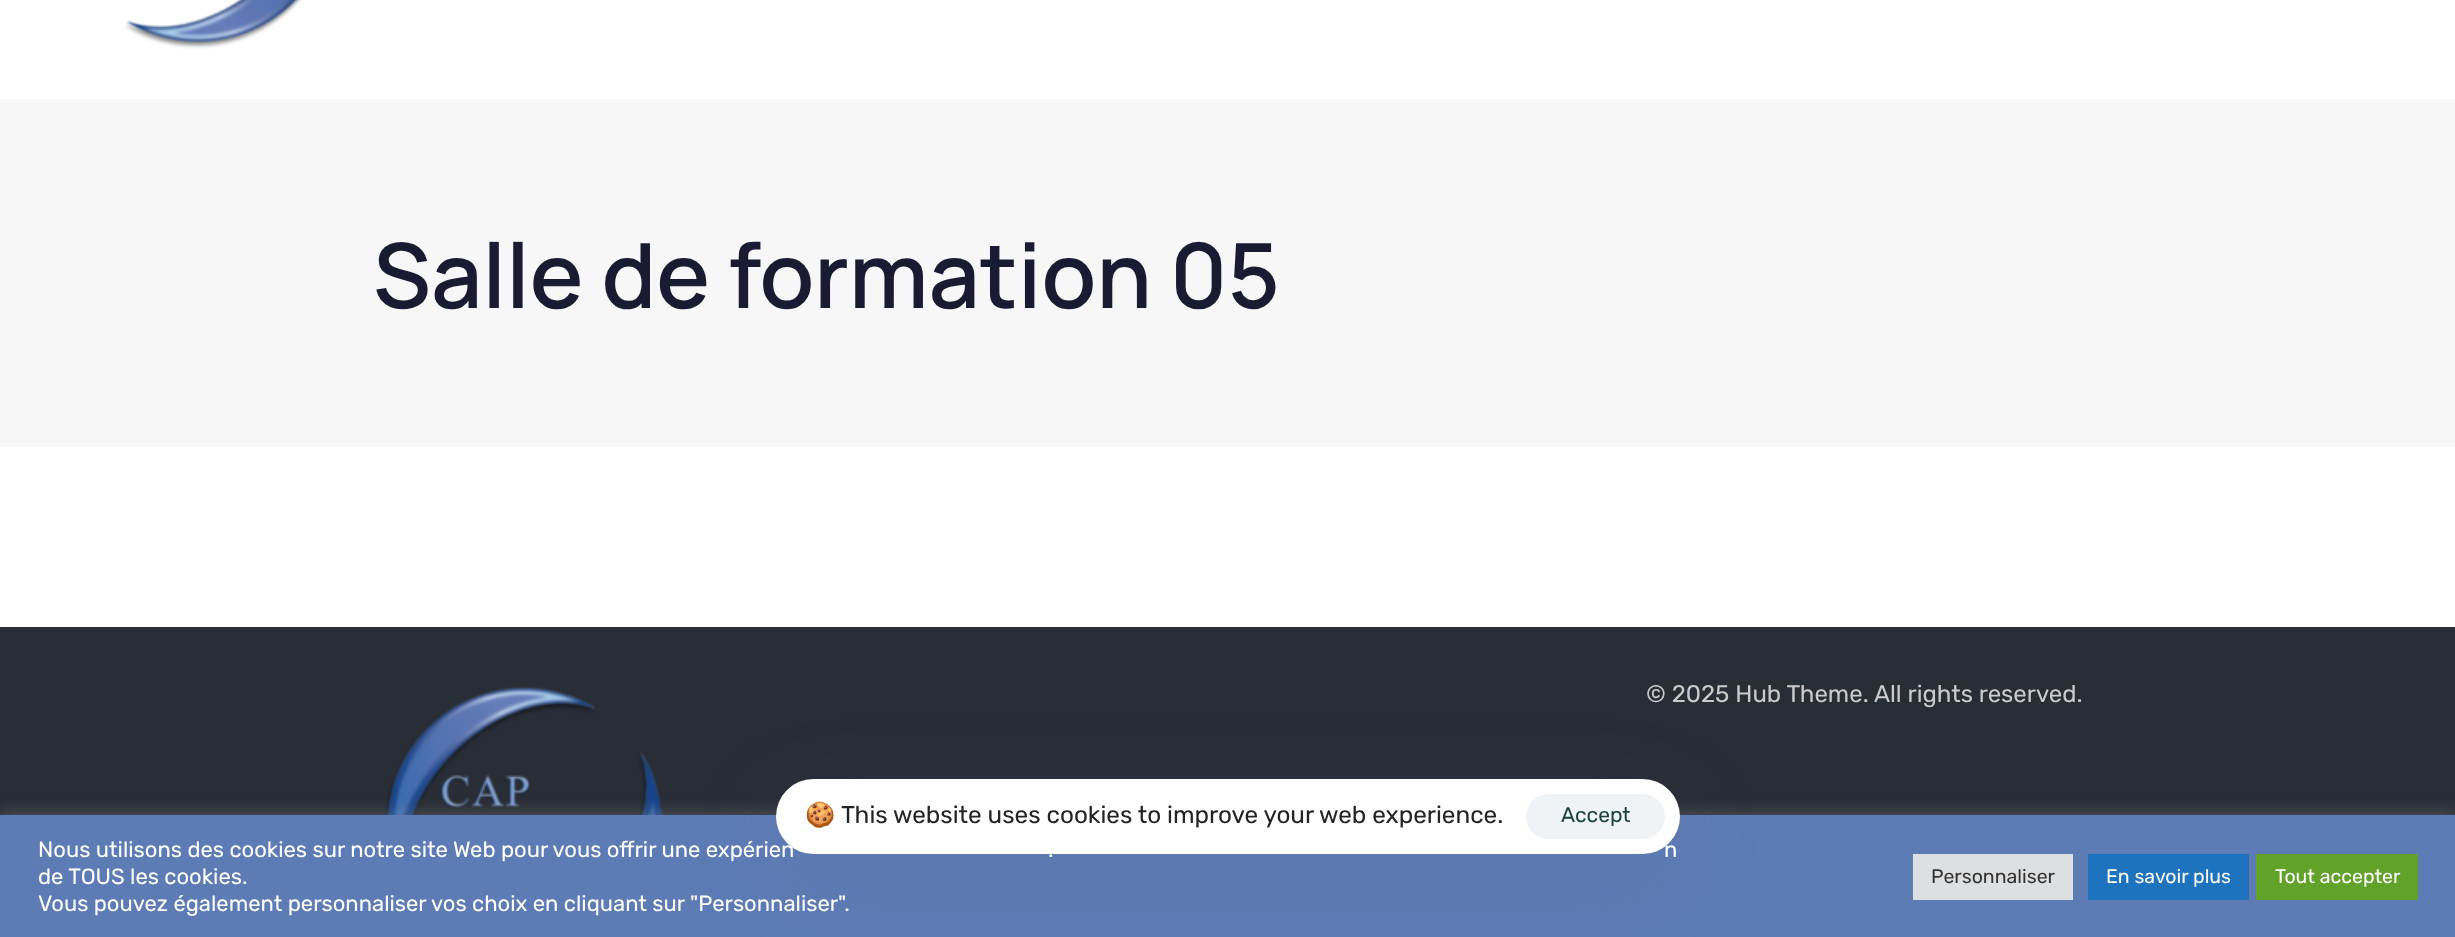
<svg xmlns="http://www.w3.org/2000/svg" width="2455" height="937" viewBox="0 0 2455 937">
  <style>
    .t1 { font: 200 90px Manrope; fill: #181b31; }
    .t2 { font: 300 24px Rubik; fill: #cbcbcb; }
    .t3 { font: 24.3px Noto Color Emoji; fill: #242424; }
    .t4 { font: 300 24.3px Rubik; fill: #242424; }
    .t5 { font: 300 21px Rubik; fill: #184341; }
    .t6 { font: 300 22px Rubik; fill: #fff; }
    .t7 { font: 300 19.5px Rubik; fill: #333; }
    .t8 { font: 300 19.5px Rubik; fill: #fff; }
  </style>
  <rect width="100%" height="100%" fill="#fff"/>
  <image x="125" y="0" width="177" height="49" href="images/1.png"/>
  <rect x="0" y="99" width="2455" height="348" fill="#f7f7f7"/>
  <text x="373" y="308" class="t1">Salle de formation 05</text>
  <rect x="0" y="627" width="2455" height="188" fill="#292d36"/>
  <image x="385" y="686" width="278" height="129" href="images/2.png"/>
  <text x="1646" y="702" class="t2">© 2025 Hub Theme. All rights reserved.</text>
  <rect x="0" y="813" width="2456" height="123" fill="#acabab4d" filter="blur(7.5px)"/>
  <rect x="0" y="815" width="2455" height="122" fill="#5d7bb5"/>
  <rect x="776" y="809" width="904" height="75" rx="37.5" fill="#5c6b9526" filter="blur(45px)"/>
  <rect x="776" y="779" width="904" height="75" rx="37.5" fill="#fff"/>
  <text x="805" y="823" class="t3">🍪</text>
  <text x="841" y="823" class="t4">This website uses cookies to improve your web experience.</text>
  <rect x="1526" y="794" width="139" height="45" rx="22.5" fill="#eff3f5"/>
  <text x="1561" y="822" class="t5">Accept</text>
  <text x="38" y="857" class="t6">Nous utilisons des cookies sur notre site Web pour vous offrir une expérien</text>
  <text x="1048" y="857" class="t6">.</text>
  <text x="1664" y="857" class="t6">n</text>
  <text x="38" y="884" class="t6">de TOUS les cookies.</text>
  <text x="38" y="911" class="t6">Vous pouvez également personnaliser vos choix en cliquant sur "Personnaliser".</text>
  <rect x="1913" y="854" width="160" height="46" fill="#dedfe0"/>
  <text x="1931" y="883" class="t7">Personnaliser</text>
  <rect x="2088" y="854" width="161" height="46" fill="#1e73be"/>
  <text x="2106" y="883" class="t8">En savoir plus</text>
  <rect x="2256" y="854" width="162" height="46" fill="#61a229"/>
  <text x="2275" y="883" class="t8">Tout accepter</text>
</svg>
